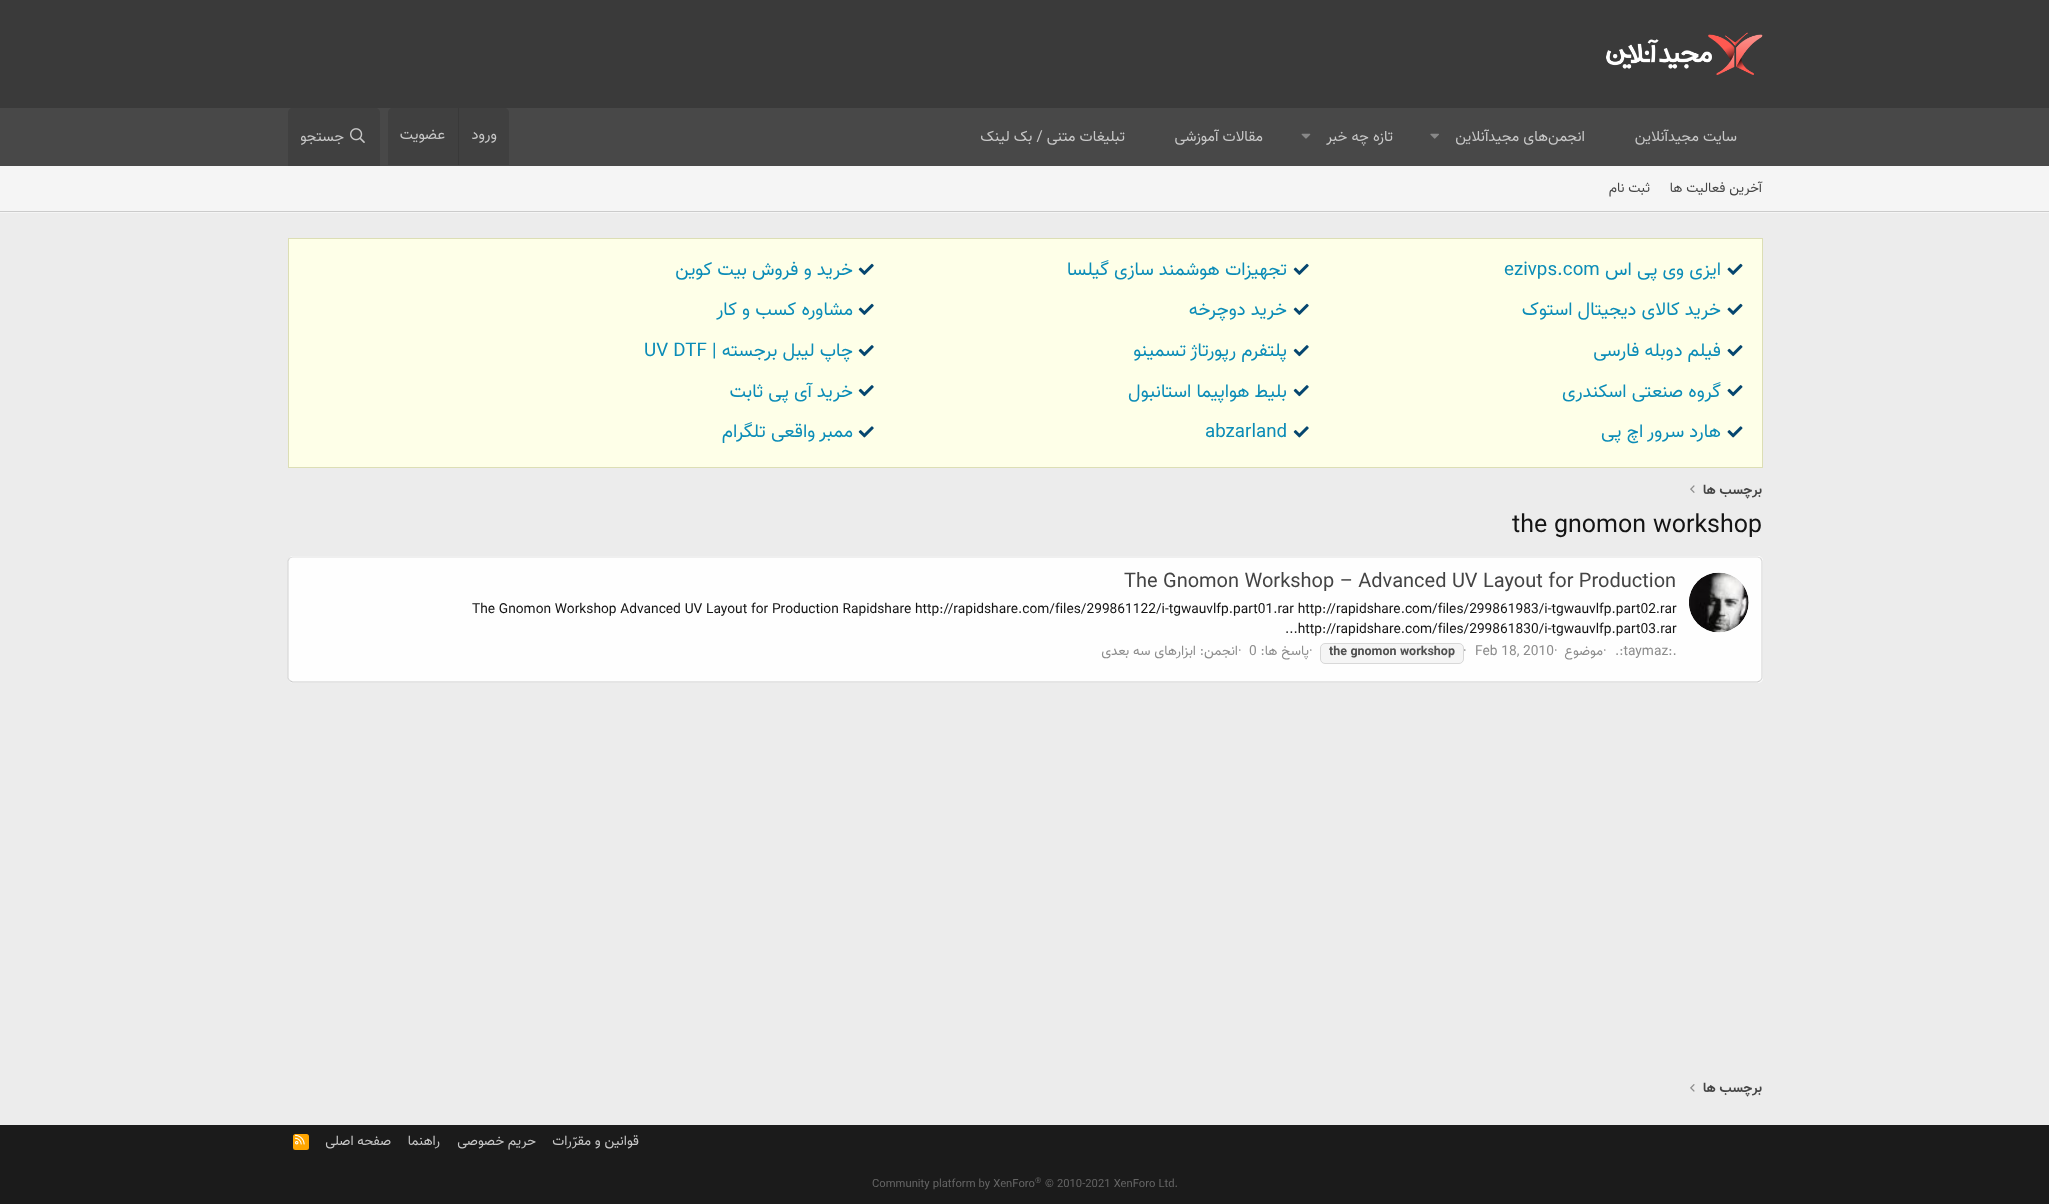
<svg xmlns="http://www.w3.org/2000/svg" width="2049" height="1204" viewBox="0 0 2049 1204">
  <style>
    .t1 { font: 15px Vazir; direction: rtl; fill: #c8c8c8; }
    .t2 { font: 13.75px Vazir; direction: rtl; fill: #444; }
    .t3 { font: 18.75px Vazir; direction: rtl; fill: #0b8cb7; }
    .t4 { font: 18.75px Vazir; fill: #0b8cb7; }
    .t5 { font: bold 13.75px Vazir; direction: rtl; fill: #444; }
    .t6 { font: 25px Vazir; fill: #141414; }
    .t7 { font: 20px Vazir; fill: #444; }
    .t8 { font: 13.75px Vazir; fill: #141414; }
    .t9 { font: 13.75px Vazir; fill: #8c8c8c; }
    .t10 { font: 13.75px Vazir; direction: rtl; fill: #8c8c8c; }
    .t11 { font: bold 12.5px Vazir; fill: #505050; }
    .t12 { font: 13.75px Vazir; direction: rtl; fill: #c8c8c8; }
    .t13 { font: 11.25px Vazir; fill: #656565; }
    .t14 { font: 8px Vazir; fill: #656565; }
  </style>
  <rect width="100%" height="100%" fill="#ececec"/>
  <rect x="0" y="0" width="2049" height="108" fill="#3a3a3a"/>
  <image x="1606" y="32" width="157" height="43" href="images/1.png"/>
  <rect x="0" y="108" width="2049" height="58" fill="#484848"/>
  <text x="1737" y="141" class="t1">سایت مجیدآنلاین</text>
  <text x="1585" y="141" class="t1">انجمن‌های مجیدآنلاین</text>
  <image x="1430" y="133" width="9" height="6" href="images/2.png"/>
  <text x="1393" y="141" class="t1">تازه چه خبر</text>
  <image x="1301" y="133" width="10" height="6" href="images/3.png"/>
  <text x="1263" y="141" class="t1">مقالات آموزشی</text>
  <text x="1125" y="141" class="t1">تبلیغات متنی / بک لینک</text>
  <path d="M393 108H504C507 108 509 110 509 113V165H388V113C388 110 390 108 393 108Z" fill="#404040"/>
  <text x="497" y="139" class="t1">ورود</text>
  <rect x="458" y="108" width="1" height="57" fill="#393939"/>
  <text x="445" y="139" class="t1">عضویت</text>
  <path d="M293 108H375C378 108 380 110 380 113V166H288V113C288 110 290 108 293 108Z" fill="#404040"/>
  <image x="350" y="128" width="15" height="15" href="images/4.png"/>
  <text x="344" y="141" class="t1">جستجو</text>
  <rect x="0" y="166" width="2049" height="47" fill="#f5f5f5"/>
  <rect x="0" y="211" width="2049" height="1" fill="#cbcbcb"/>
  <text x="1762" y="192" class="t2">آخرین فعالیت ها</text>
  <text x="1650" y="192" class="t2">ثبت نام</text>
  <rect x="288.5" y="238.5" width="1474" height="229" fill="#feffe8" stroke="#dcdeb5"/>
  <image x="1727" y="263" width="16" height="12" href="images/5.png"/>
  <text x="1721" y="275" class="t3">ایزی وی پی اس</text>
  <text x="1504" y="275" class="t4">ezivps.com</text>
  <image x="1293" y="263" width="16" height="12" href="images/6.png"/>
  <text x="1287" y="275" class="t3">تجهیزات هوشمند سازی گیلسا</text>
  <image x="858" y="263" width="16" height="12" href="images/6.png"/>
  <text x="853" y="275" class="t3">خرید و فروش بیت کوین</text>
  <image x="1727" y="303" width="16" height="12" href="images/5.png"/>
  <text x="1721" y="315" class="t3">خرید کالای دیجیتال استوک</text>
  <image x="1293" y="303" width="16" height="12" href="images/6.png"/>
  <text x="1287" y="315" class="t3">خرید دوچرخه</text>
  <image x="858" y="303" width="16" height="12" href="images/6.png"/>
  <text x="853" y="315" class="t3">مشاوره کسب و کار</text>
  <image x="1727" y="345" width="16" height="12" href="images/7.png"/>
  <text x="1721" y="356" class="t3">فیلم دوبله فارسی</text>
  <image x="1293" y="345" width="16" height="12" href="images/8.png"/>
  <text x="1287" y="356" class="t3">پلتفرم رپورتاژ تسمینو</text>
  <image x="858" y="345" width="16" height="12" href="images/8.png"/>
  <text x="853" y="356" class="t3">چاپ لیبل برجسته |</text>
  <text x="644" y="356" class="t4">UV DTF</text>
  <image x="1727" y="385" width="16" height="12" href="images/7.png"/>
  <text x="1721" y="397" class="t3">گروه صنعتی اسکندری</text>
  <image x="1293" y="385" width="16" height="12" href="images/8.png"/>
  <text x="1287" y="397" class="t3">بلیط هواپیما استانبول</text>
  <image x="858" y="385" width="16" height="12" href="images/8.png"/>
  <text x="853" y="397" class="t3">خرید آی پی ثابت</text>
  <image x="1727" y="426" width="16" height="12" href="images/9.png"/>
  <text x="1721" y="437" class="t3">هارد سرور اچ پی</text>
  <image x="1293" y="426" width="16" height="12" href="images/10.png"/>
  <text x="1205" y="437" class="t4">abzarland</text>
  <image x="858" y="426" width="16" height="12" href="images/10.png"/>
  <text x="853" y="437" class="t3">ممبر واقعی تلگرام</text>
  <text x="1762" y="494" class="t5">برچسب ها</text>
  <image x="1690" y="485" width="5" height="8" href="images/11.png"/>
  <text x="1512" y="532" class="t6">the gnomon workshop</text>
  <rect x="288" y="556" width="1475" height="127" rx="5" fill="#fefefe"/>
  <path d="M289.5 558L292.5 557H1757.5L1760.5 558" fill="none" stroke="#dfdfdf" stroke-width="1.2"/>
  <path d="M1760.5 558L1762 561V678L1760.5 680.5" fill="none" stroke="#d8d8d8" stroke-width="1.2"/>
  <path d="M1760.5 680.5L1757.5 682H292.5L289.5 680.5" fill="none" stroke="#cbcbcb" stroke-width="1.2"/>
  <path d="M289.5 680.5L288 678V580.5V561L289.5 558" fill="none" stroke="#d8d8d8" stroke-width="1.2"/>
  <image x="1689" y="572" width="60" height="61" href="images/12.png"/>
  <text x="1124" y="587" class="t7">The Gnomon Workshop – Advanced UV Layout for Production</text>
  <text x="472" y="613" class="t8">The Gnomon Workshop Advanced UV Layout for Production Rapidshare http://rapidshare.com/files/299861122/i-tgwauvlfp.part01.rar http://rapidshare.com/files/299861983/i-tgwauvlfp.part02.rar</text>
  <text x="1285" y="633" class="t8">...http://rapidshare.com/files/299861830/i-tgwauvlfp.part03.rar</text>
  <text x="1615" y="655" class="t9">.:taymaz:.</text>
  <text x="1603" y="655" class="t9">·</text>
  <text x="1603" y="655" class="t10">موضوع</text>
  <text x="1554" y="655" class="t9">·</text>
  <text x="1475" y="655" class="t9">Feb 18, 2010</text>
  <text x="1463" y="655" class="t9">·</text>
  <rect x="1320.5" y="643.5" width="143" height="20" rx="4.5" fill="#f5f5f5" stroke="#d8d8d8"/>
  <text x="1329" y="655" class="t11">the gnomon workshop</text>
  <text x="1309" y="655" class="t9">·</text>
  <text x="1309" y="655" class="t10">پاسخ ها:</text>
  <text x="1249" y="655" class="t9">0</text>
  <text x="1238" y="655" class="t9">·</text>
  <text x="1238" y="655" class="t10">انجمن:</text>
  <text x="1196" y="655" class="t10">ابزارهای سه بعدی</text>
  <text x="1762" y="1092" class="t5">برچسب ها</text>
  <image x="1690" y="1084" width="5" height="8" href="images/13.png"/>
  <rect x="0" y="1125" width="2049" height="79" fill="#1b1b1b"/>
  <text x="639" y="1145" class="t12">قوانین و مقرّرات</text>
  <text x="536" y="1145" class="t12">حریم خصوصی</text>
  <text x="440" y="1145" class="t12">راهنما</text>
  <text x="391" y="1145" class="t12">صفحه اصلی</text>
  <rect x="293" y="1134" width="16" height="16" rx="2.5" fill="#ffa500"/>
  <image x="295" y="1134" width="10" height="11" href="images/14.png"/>
  <text x="1045" y="1187" class="t13">© 2010-2021 XenForo Ltd.</text>
  <text x="1035" y="1183" class="t14">®</text>
  <text x="872" y="1187" class="t13">Community platform by XenForo</text>
</svg>
